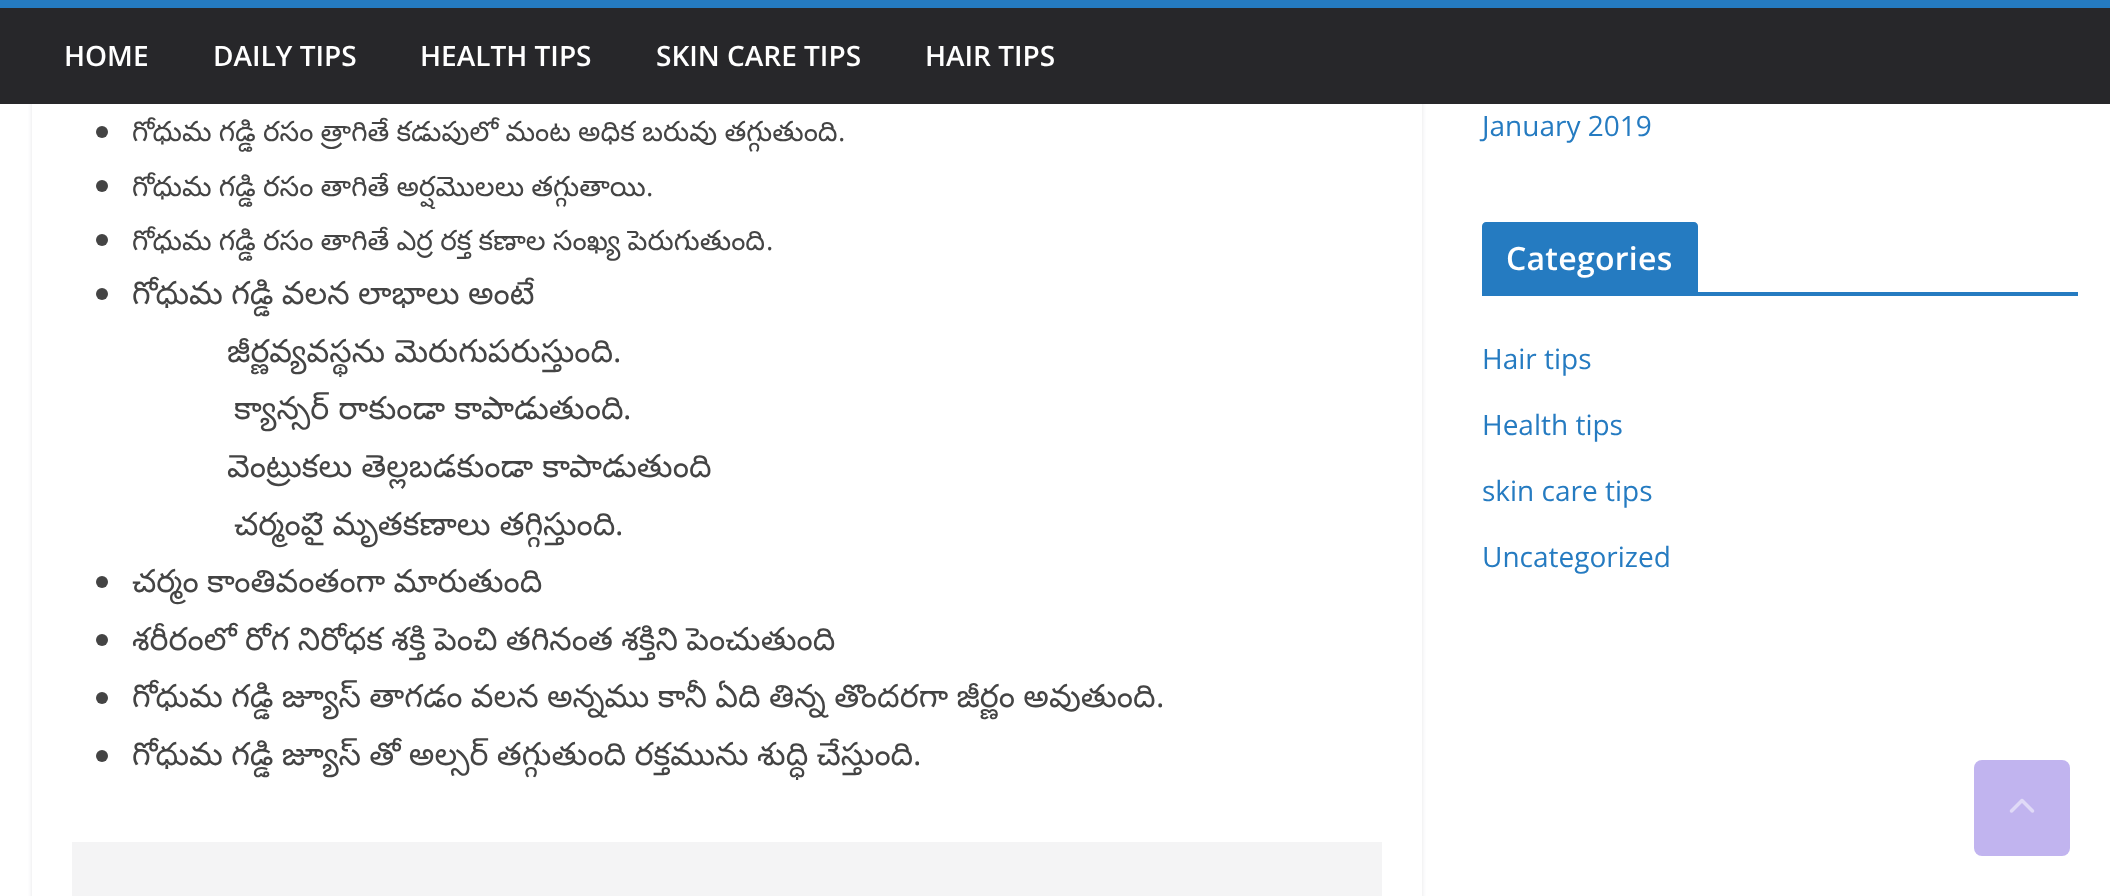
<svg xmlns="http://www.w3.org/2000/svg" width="2110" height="896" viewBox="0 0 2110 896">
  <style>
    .t1 { font: 600 28px Open Sans; fill: #fff; }
    .t2 { font: 28px Noto Sans Telugu; fill: #444; }
    .t3 { font: 28px Open Sans; fill: #444; }
    .t4 { font: 32px Noto Sans Telugu; fill: #444; }
    .t5 { font: 32px Open Sans; fill: #444; }
    .t6 { font: 28px Open Sans; fill: #257bc1; }
    .t7 { font: 600 32px Open Sans; letter-spacing: 0.25px; fill: #fff; }
  </style>
  <defs>
    <clipPath id="clip1"><path d="M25 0H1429V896H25ZM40-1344H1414C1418.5-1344 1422-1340.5 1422-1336V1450C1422 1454.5 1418.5 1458 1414 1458H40C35.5 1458 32 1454.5 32 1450V-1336C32-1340.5 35.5-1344 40-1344Z" clip-rule="evenodd"/></clipPath>
  </defs>
  <rect width="100%" height="100%" fill="#fff"/>
  <g clip-path="url(#clip1)">
    <rect x="32" y="-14" width="1390" height="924" rx="8" fill="#e4e4e7" filter="blur(2px)"/>
  </g>
  <rect x="0" y="8" width="2110" height="96" fill="#27272a"/>
  <rect x="0" y="0" width="2110" height="8" fill="#257bc1"/>
  <text x="64" y="66" class="t1">HOME</text>
  <text x="213" y="66" class="t1">DAILY TIPS</text>
  <text x="420" y="66" class="t1">HEALTH TIPS</text>
  <text x="656" y="66" class="t1">SKIN CARE TIPS</text>
  <text x="925" y="66" class="t1">HAIR TIPS</text>
  <circle cx="102" cy="132" r="6" fill="#444"/>
  <text x="132" y="141" word-spacing="-0.75" class="t2">గోధుమ గడ్డి రసం త్రాగితే కడుపులో మంట అధిక బరువు తగ్గుతుంది</text>
  <text x="838" y="141" class="t3">.</text>
  <circle cx="102" cy="186" r="6" fill="#444"/>
  <text x="132" y="196" word-spacing="-0.75" class="t2">గోధుమ గడ్డి రసం తాగితే అర్షమొలలు తగ్గుతాయి</text>
  <text x="646" y="196" class="t3">.</text>
  <circle cx="102" cy="240" r="6" fill="#444"/>
  <text x="132" y="250" word-spacing="-0.75" class="t2">గోధుమ గడ్డి రసం తాగితే ఎర్ర రక్త కణాల సంఖ్య పెరుగుతుంది</text>
  <text x="766" y="250" class="t3">.</text>
  <circle cx="102" cy="294" r="6" fill="#444"/>
  <text x="132" y="304" word-spacing="-0.75" class="t4">గోధుమ గడ్డి వలన లాభాలు అంటే</text>
  <text x="227" y="362" class="t4">జీర్ణవ్యవస్థను మెరుగుపరుస్తుంది</text>
  <text x="613" y="362" class="t5">.</text>
  <text x="234" y="419" class="t4">క్యాన్సర్ రాకుండా కాపాడుతుంది</text>
  <text x="623" y="419" class="t5">.</text>
  <text x="227" y="477" class="t4">వెంట్రుకలు తెల్లబడకుండా కాపాడుతుంది</text>
  <text x="234" y="535" class="t4">చర్మంపై మృతకణాలు తగ్గిస్తుంది</text>
  <text x="615" y="535" class="t5">.</text>
  <circle cx="102" cy="582" r="6" fill="#444"/>
  <text x="132" y="592" word-spacing="-0.75" class="t4">చర్మం కాంతివంతంగా మారుతుంది</text>
  <circle cx="102" cy="640" r="6" fill="#444"/>
  <text x="132" y="650" word-spacing="-0.75" class="t4">శరీరంలో రోగ నిరోధక శక్తి పెంచి తగినంత శక్తిని పెంచుతుంది</text>
  <circle cx="102" cy="698" r="6" fill="#444"/>
  <text x="132" y="707" word-spacing="-0.75" class="t4">గోధుమ గడ్డి జ్యూస్ తాగడం వలన అన్నము కానీ ఏది తిన్న తొందరగా జీర్ణం అవుతుంది</text>
  <text x="1156" y="707" class="t5">.</text>
  <circle cx="102" cy="756" r="6" fill="#444"/>
  <text x="132" y="765" word-spacing="-0.75" class="t4">గోధుమ గడ్డి జ్యూస్ తో అల్సర్ తగ్గుతుంది రక్తమును శుద్ధి చేస్తుంది</text>
  <text x="913" y="765" class="t5">.</text>
  <rect x="72" y="842" width="1310" height="54" fill="#f4f4f5"/>
  <text x="1482" y="136" class="t6">January 2019</text>
  <rect x="1482" y="292" width="596" height="4" fill="#257bc1"/>
  <path d="M1486 222H1694C1696 222 1698 224 1698 226V292H1482V226C1482 224 1484 222 1486 222Z" fill="#257bc1"/>
  <text x="1506" y="270" class="t7">Categories</text>
  <text x="1482" y="369" class="t6">Hair tips</text>
  <text x="1482" y="435" class="t6">Health tips</text>
  <text x="1482" y="501" class="t6">skin care tips</text>
  <text x="1482" y="567" class="t6">Uncategorized</text>
  <rect x="1974" y="760" width="96" height="96" rx="8" fill="#c1b4ef"/>
  <image x="2009" y="798" width="26" height="15" href="images/1.png"/>
</svg>
